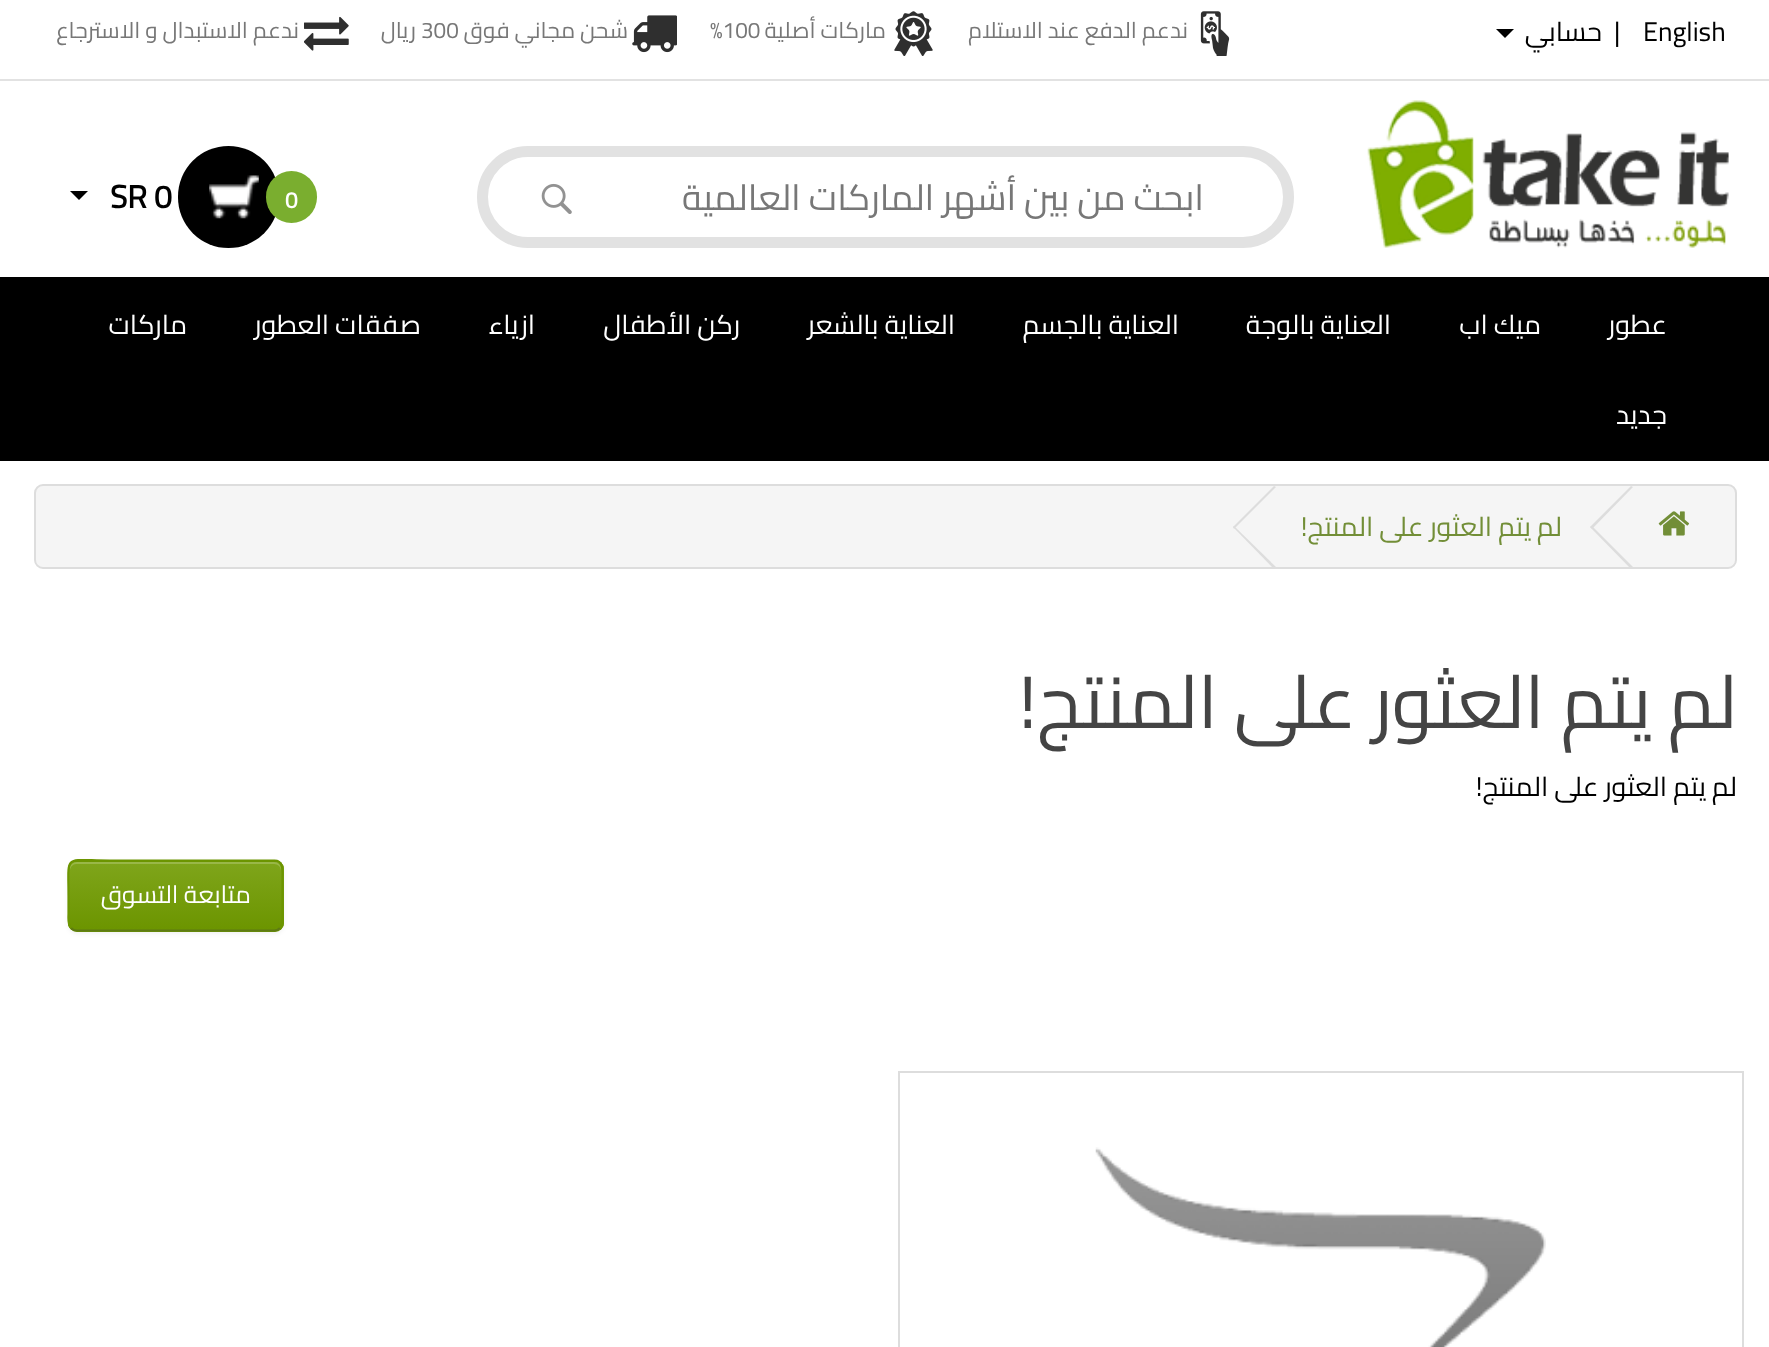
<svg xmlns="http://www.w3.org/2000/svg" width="1769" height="1347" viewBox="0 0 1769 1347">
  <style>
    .t1 { font: 27px Cairo; fill: #000; }
    .t2 { font: 27px Cairo; direction: rtl; fill: #000; }
    .t3 { font: 22.5px Cairo; direction: rtl; fill: #777; }
    .t4 { font: 22.5px Cairo; fill: #777; }
    .t5 { font: 36px Cairo; direction: rtl; fill: #777; }
    .t6 { font: bold 22.5px Cairo; fill: #fff; }
    .t7 { font: bold 32px Cairo; fill: #000; }
    .t8 { font: 27px Cairo; direction: rtl; fill: #fff; }
    .t9 { font: 27px Cairo; direction: rtl; fill: #728e37; }
    .t10 { font: 74.25px Cairo; direction: rtl; fill: #444; }
    .t11 { font: 24.75px Cairo; direction: rtl; fill: #fff; }
  </style>
  <defs>
    <clipPath id="clip1"><rect x="68" y="860" width="216" height="72" rx="9"/></clipPath>
    <linearGradient id="g1" gradientUnits="userSpaceOnUse" x1="176" y1="862" x2="176" y2="929"><stop offset="0" stop-color="#7fa51b"/><stop offset="1" stop-color="#6c9500"/></linearGradient>
  </defs>
  <rect width="100%" height="100%" fill="#fff"/>
  <rect x="0" y="79" width="1769" height="2" fill="#e2e2e2"/>
  <text x="1643" y="41" class="t1">English</text>
  <text x="1614" y="41" class="t1">|</text>
  <text x="1602" y="41" class="t2">حسابي</text>
  <path d="M1496 29H1514L1505 38Z" fill="#000"/>
  <image x="1200" y="11" width="30" height="45" href="images/1.png"/>
  <text x="1188" y="38" class="t3">ندعم الدفع عند الاستلام</text>
  <image x="894" y="11" width="39" height="45" href="images/2.png"/>
  <text x="886" y="38" class="t3">ماركات أصلية</text>
  <text x="710" y="38" class="t4">%100</text>
  <image x="632" y="15" width="45" height="38" href="images/3.png"/>
  <text x="628" y="38" class="t3">شحن مجاني فوق</text>
  <text x="421" y="38" class="t4">300</text>
  <text x="416" y="38" class="t3">ريال</text>
  <image x="304" y="16" width="45" height="35" href="images/4.png"/>
  <text x="299" y="38" class="t3">ندعم الاستبدال و الاسترجاع</text>
  <image x="1367" y="100" width="362" height="148" href="images/5.png"/>
  <rect x="482.5" y="151.5" width="806" height="91" rx="45.5" fill="none" stroke="#e2e2e2" stroke-width="11"/>
  <text x="1204" y="210" class="t5">ابحث من بين أشهر الماركات العالمية</text>
  <image x="541" y="183" width="31" height="31" href="images/6.png"/>
  <rect x="178" y="146" width="101" height="102" rx="50.5" fill="#000"/>
  <rect x="266" y="171" width="51" height="52" rx="25.5" fill="#7aae2f"/>
  <text x="285" y="208" class="t6">0</text>
  <image x="209" y="175" width="50" height="44" href="images/7.png"/>
  <text x="110" y="208" class="t7">SR 0</text>
  <path d="M70 191H88L79 200Z" fill="#000"/>
  <rect x="0" y="277" width="1769" height="184" fill="#000"/>
  <text x="1667" y="334" class="t8">عطور</text>
  <text x="1541" y="334" class="t8">ميك اب</text>
  <text x="1391" y="334" class="t8">العناية بالوجة</text>
  <text x="1179" y="334" class="t8">العناية بالجسم</text>
  <text x="955" y="334" class="t8">العناية بالشعر</text>
  <text x="740" y="334" class="t8">ركن الأطفال</text>
  <text x="535" y="334" class="t8">ازياء</text>
  <text x="421" y="334" class="t8">صفقات العطور</text>
  <text x="187" y="334" class="t8">ماركات</text>
  <text x="1667" y="424" class="t8">جديد</text>
  <rect x="35" y="485" width="1701" height="83" rx="8" fill="#f5f5f5" stroke="#ddd" stroke-width="2"/>
  <image x="1658" y="511" width="32" height="25" href="images/8.png"/>
  <path d="M1592 526L1633 567L1631 569L1590 527Z" fill="#ddd"/>
  <path d="M1631 486L1633 487L1592 529L1590 527Z" fill="#ddd"/>
  <text x="1562" y="536" class="t9">لم يتم العثور على المنتج!</text>
  <path d="M1234 526L1276 567L1274 569L1233 527Z" fill="#ddd"/>
  <path d="M1274 486L1276 487L1234 529L1233 527Z" fill="#ddd"/>
  <text x="1737" y="728" class="t10">لم يتم العثور على المنتج!</text>
  <text x="1737" y="796" class="t2">لم يتم العثور على المنتج!</text>
  <rect x="68" y="862" width="216" height="72" rx="9" fill="#0000000d" filter="blur(2px)"/>
  <rect x="68" y="860" width="216" height="72" rx="9" fill="#6c9500"/>
  <g clip-path="url(#clip1)">
    <rect x="68" y="862" width="216" height="67" fill="url(#g1)"/>
  </g>
  <path d="M76 864H274C278 864 281 867 281 871V869C281 865 278 862 274 862H77C73 862 70 865 70 869V871C70 867 73 864 76 864Z" fill="#99b748"/>
  <path d="M280 928C278.5 929.5 276.5 930.5 274.5 930.5H76.5C74.5 930.5 72.5 929.5 71 928" fill="none" stroke="#5e7a14" stroke-width="2.2"/>
  <path d="M71 928C67.5 924.5 68.5 918 68.5 913.5V895.5C68.5 853 63 860.5 109.5 860.5H274.5C284 860.5 282.5 871.5 282.5 877.5V913.5C282.5 918 283.5 924.5 280 928" fill="none" stroke="#6c9500" stroke-width="2.2"/>
  <text x="251" y="903" class="t11">متابعة التسوق</text>
  <rect x="899" y="1072" width="844" height="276" fill="none" stroke="#ddd" stroke-width="2"/>
  <image x="1095" y="1147" width="451" height="200" href="images/9.png"/>
</svg>
